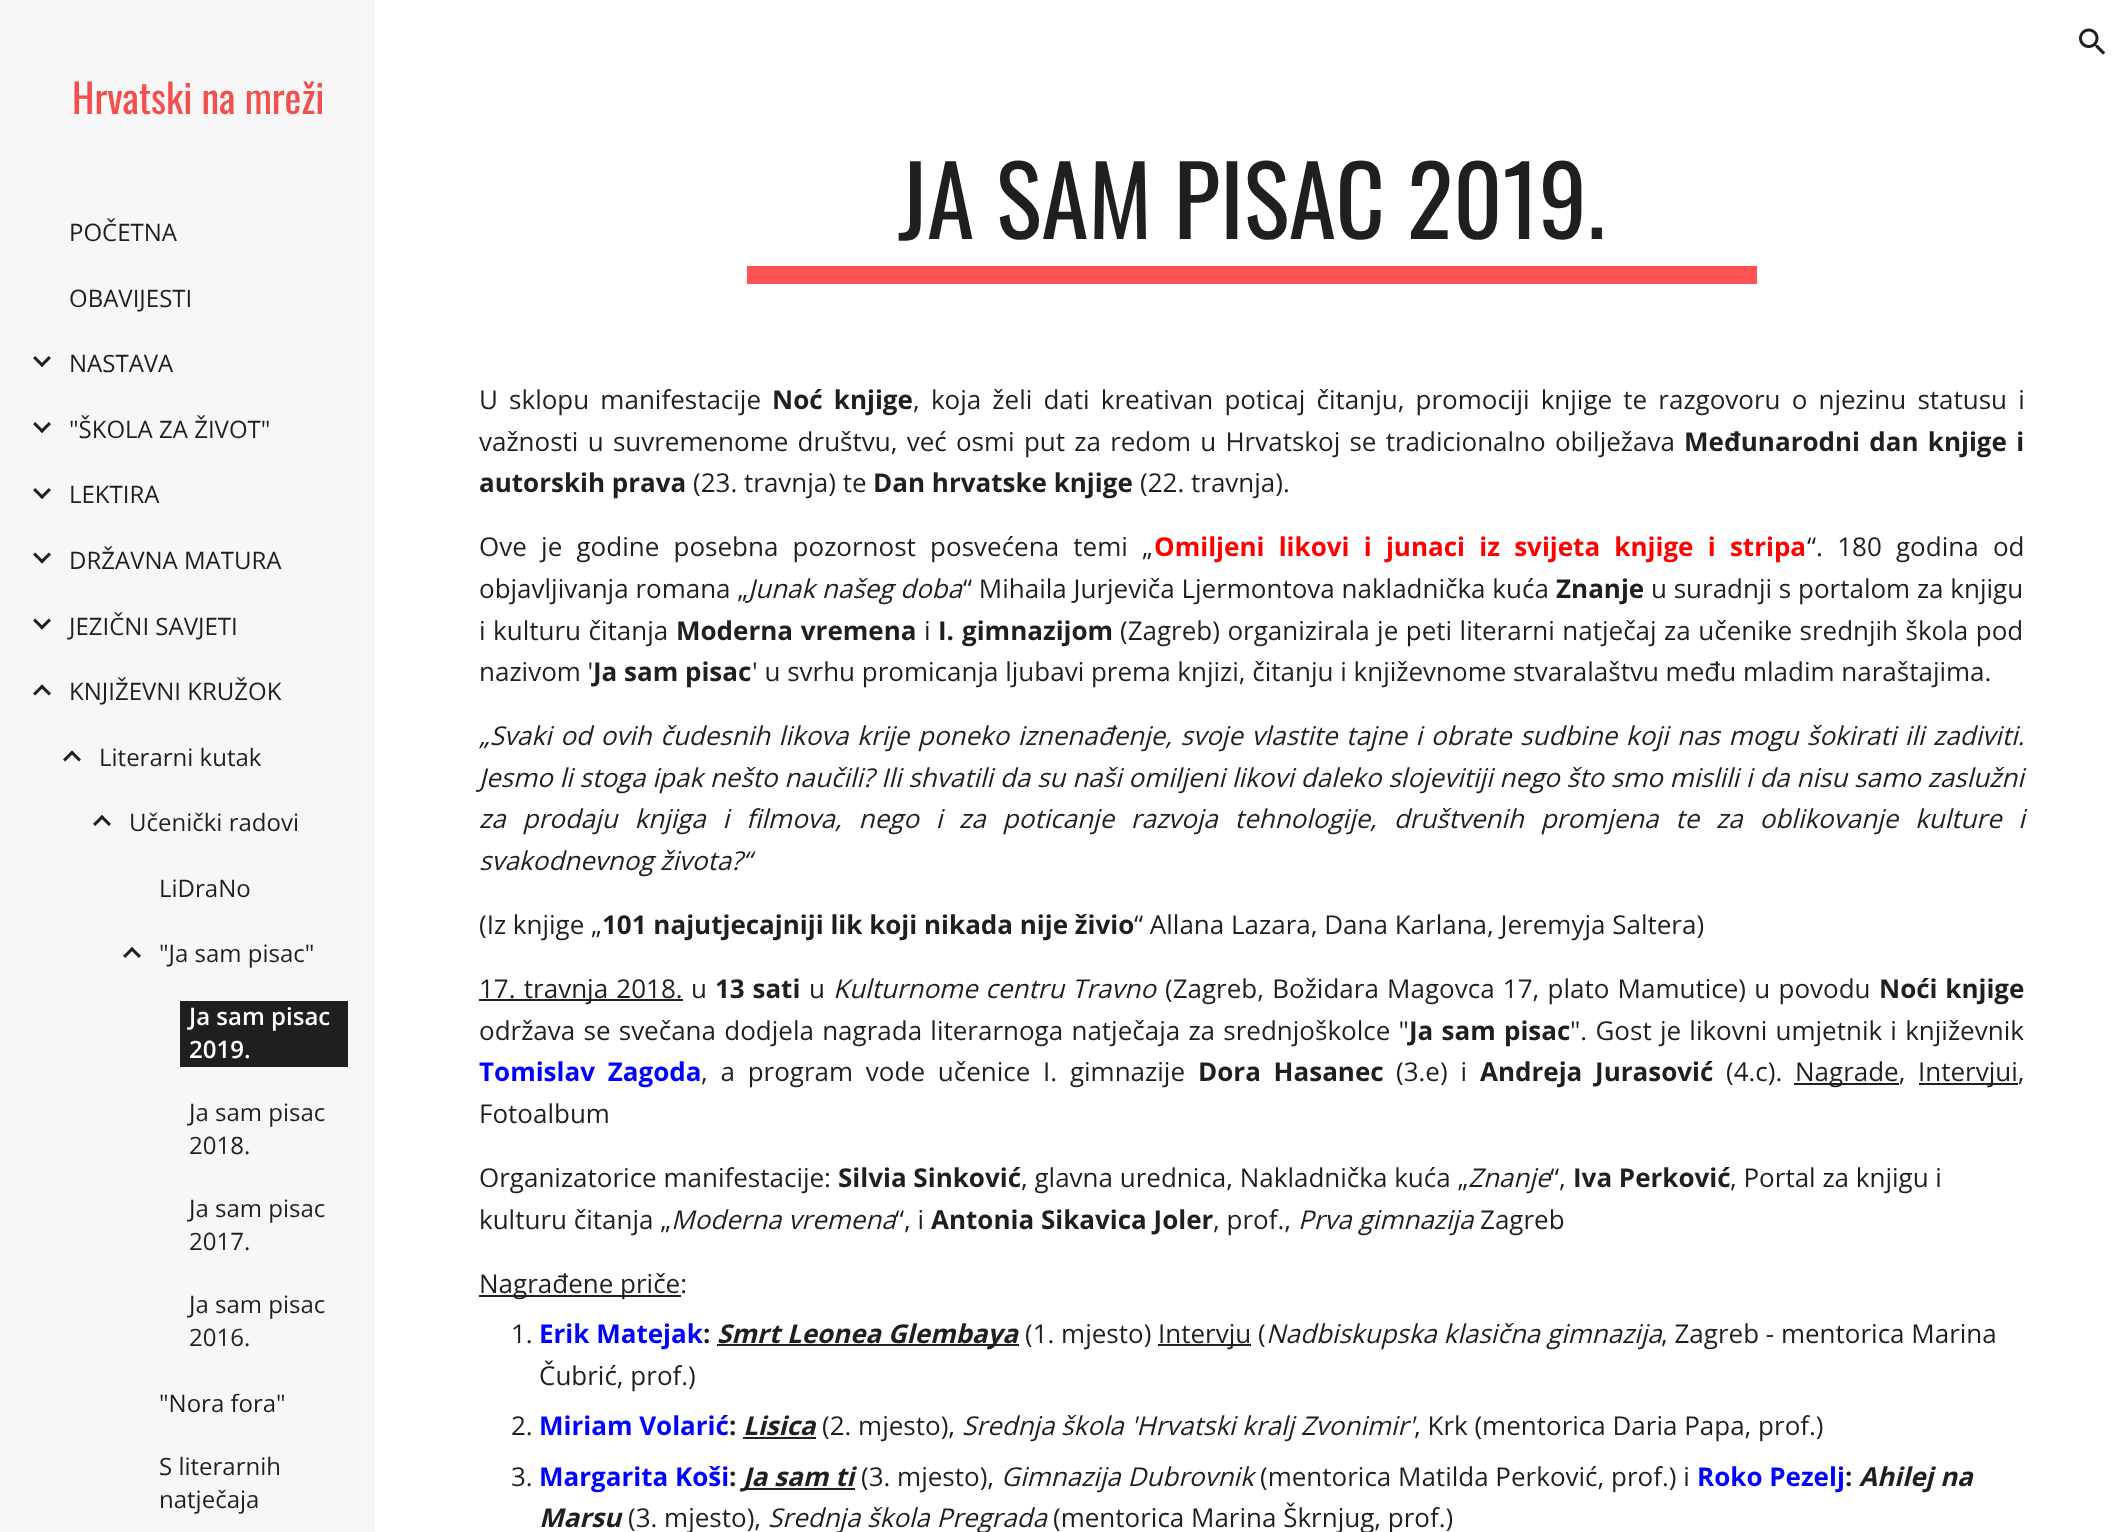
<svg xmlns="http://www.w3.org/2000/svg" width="2128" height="1532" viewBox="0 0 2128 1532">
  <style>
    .t1 { font: 40px Oswald; fill: #f34f4c; }
    .t2 { font: 24px Open Sans; fill: #1f1f1f; }
    .t3 { font: 600 24px Open Sans; fill: #fff; }
    .t4 { font: 96px Oswald; fill: #1f1f1f; }
    .t5 { font: 26px Open Sans; fill: #1f1f1f; }
    .t6 { font: bold 26px Open Sans; fill: #1f1f1f; }
    .t7 { font: bold 26px Open Sans; fill: #f00; }
    .t8 { font: italic 26px Open Sans; fill: #1f1f1f; }
    .t9 { font: bold 26px Open Sans; fill: #00f; }
    .t10 { font: italic bold 26px Open Sans; fill: #1f1f1f; }
  </style>
  <rect width="100%" height="100%" fill="#fff"/>
  <image x="2079" y="28" width="27" height="27" href="images/1.png"/>
  <rect x="0" y="0" width="375" height="1532" fill="#f7f7f7"/>
  <text x="72" y="114" class="t1">Hrvatski na mreži</text>
  <text x="69" y="241" class="t2">POČETNA</text>
  <text x="69" y="307" class="t2">OBAVIJESTI</text>
  <image x="33" y="356" width="18" height="11" href="images/2.png"/>
  <text x="69" y="372" class="t2">NASTAVA</text>
  <image x="33" y="422" width="18" height="11" href="images/2.png"/>
  <text x="69" y="438" class="t2">"ŠKOLA ZA ŽIVOT"</text>
  <image x="33" y="488" width="18" height="11" href="images/2.png"/>
  <text x="69" y="503" class="t2">LEKTIRA</text>
  <image x="33" y="552" width="18" height="12" href="images/3.png"/>
  <text x="69" y="569" class="t2">DRŽAVNA MATURA</text>
  <image x="33" y="618" width="18" height="12" href="images/3.png"/>
  <text x="69" y="635" class="t2">JEZIČNI SAVJETI</text>
  <image x="33" y="684" width="18" height="12" href="images/4.png"/>
  <text x="69" y="700" class="t2">KNJIŽEVNI KRUŽOK</text>
  <image x="63" y="750" width="18" height="12" href="images/4.png"/>
  <text x="99" y="766" class="t2">Literarni kutak</text>
  <image x="93" y="815" width="18" height="11" href="images/5.png"/>
  <text x="129" y="831" class="t2">Učenički radovi</text>
  <text x="159" y="897" class="t2">LiDraNo</text>
  <image x="123" y="947" width="18" height="11" href="images/5.png"/>
  <text x="159" y="962" class="t2">"Ja sam pisac"</text>
  <rect x="180" y="1001" width="168" height="66" fill="#1f1f1f"/>
  <text x="189" y="1025" class="t3">Ja sam pisac</text>
  <text x="189" y="1058" class="t3">2019.</text>
  <text x="189" y="1121" class="t2">Ja sam pisac</text>
  <text x="189" y="1154" class="t2">2018.</text>
  <text x="189" y="1217" class="t2">Ja sam pisac</text>
  <text x="189" y="1250" class="t2">2017.</text>
  <text x="189" y="1313" class="t2">Ja sam pisac</text>
  <text x="189" y="1346" class="t2">2016.</text>
  <text x="159" y="1412" class="t2">"Nora fora"</text>
  <text x="159" y="1475" class="t2">S literarnih</text>
  <text x="159" y="1508" class="t2">natječaja</text>
  <text x="898" y="239" class="t4">JA SAM PISAC 2019.</text>
  <rect x="747" y="266" width="1010" height="18" fill="#ff5252"/>
  <text x="479" y="409" word-spacing="4.4" class="t5">U sklopu manifestacije</text>
  <text x="772" y="409" word-spacing="4.4" class="t6">Noć knjige</text>
  <text x="913" y="409" word-spacing="4.4" class="t5">, koja želi dati kreativan poticaj čitanju, promociji knjige te razgovoru o njezinu statusu i</text>
  <text x="479" y="451" word-spacing="2.5" class="t5">važnosti u suvremenome društvu, već osmi put za redom u Hrvatskoj se tradicionalno obilježava</text>
  <text x="1684" y="451" word-spacing="2.5" class="t6">Međunarodni dan knjige i</text>
  <text x="479" y="492" class="t6">autorskih prava</text>
  <text x="693" y="492" class="t5">(23. travnja) te</text>
  <text x="873" y="492" class="t6">Dan hrvatske knjige</text>
  <text x="1140" y="492" class="t5">(22. travnja).</text>
  <text x="479" y="556" word-spacing="7.5" class="t5">Ove je godine posebna pozornost posvećena temi „</text>
  <text x="1154" y="556" word-spacing="7.5" class="t7">Omiljeni likovi i junaci iz svijeta knjige i stripa</text>
  <text x="1807" y="556" word-spacing="7.5" class="t5">“. 180 godina od</text>
  <text x="479" y="598" class="t5">objavljivanja romana „</text>
  <text x="748" y="598" class="t8">Junak našeg doba</text>
  <text x="963" y="598" class="t5">“ Mihaila Jurjeviča Ljermontova nakladnička kuća</text>
  <text x="1556" y="598" class="t6">Znanje</text>
  <text x="1651" y="598" class="t5">u suradnji s portalom za knjigu</text>
  <text x="479" y="640" word-spacing="0.75" class="t5">i kulturu čitanja</text>
  <text x="676" y="640" word-spacing="1" class="t6">Moderna vremena</text>
  <text x="924" y="640" class="t5">i</text>
  <text x="938" y="640" class="t6">I.</text>
  <text x="962" y="640" class="t6">gimnazijom</text>
  <text x="1120" y="640" word-spacing="0.75" class="t5">(Zagreb) organizirala je peti literarni natječaj za učenike srednjih škola pod</text>
  <text x="479" y="681" class="t5">nazivom '</text>
  <text x="593" y="681" class="t6">Ja sam pisac</text>
  <text x="752" y="681" class="t5">' u svrhu promicanja ljubavi prema knjizi, čitanju i književnome stvaralaštvu među mladim naraštajima.</text>
  <text x="479" y="745" word-spacing="1.9" class="t8">„Svaki od ovih čudesnih likova krije poneko iznenađenje, svoje vlastite tajne i obrate sudbine koji nas mogu šokirati ili zadiviti.</text>
  <text x="479" y="787" word-spacing="0.1" class="t8">Jesmo li stoga ipak nešto naučili? Ili shvatili da su naši omiljeni likovi daleko slojevitiji nego što smo mislili i da nisu samo zaslužni</text>
  <text x="479" y="828" word-spacing="10.1" class="t8">za prodaju knjiga i filmova, nego i za poticanje razvoja tehnologije, društvenih promjena te za oblikovanje kulture i</text>
  <text x="479" y="870" class="t8">svakodnevnog života?“</text>
  <text x="479" y="934" class="t5">(Iz knjige „</text>
  <text x="602" y="934" class="t6">101 najutjecajniji lik koji nikada nije živio</text>
  <text x="1134" y="934" class="t5">“ Allana Lazara, Dana Karlana, Jeremyja Saltera)</text>
  <rect x="479" y="999" width="204" height="2" fill="#212121"/>
  <text x="479" y="998" word-spacing="1.5" class="t5">17. travnja 2018.</text>
  <text x="691" y="998" class="t5">u</text>
  <text x="715" y="998" word-spacing="1" class="t6">13 sati</text>
  <text x="809" y="998" class="t5">u</text>
  <text x="833" y="998" word-spacing="1" class="t8">Kulturnome centru Travno</text>
  <text x="1165" y="998" word-spacing="1.5" class="t5">(Zagreb, Božidara Magovca 17, plato Mamutice) u povodu</text>
  <text x="1879" y="998" word-spacing="1" class="t6">Noći knjige</text>
  <text x="479" y="1040" word-spacing="1.5" class="t5">održava se svečana dodjela nagrada literarnoga natječaja za srednjoškolce "</text>
  <text x="1409" y="1040" word-spacing="1.5" class="t6">Ja sam pisac</text>
  <text x="1570" y="1040" word-spacing="1.5" class="t5">". Gost je likovni umjetnik i književnik</text>
  <text x="479" y="1081" word-spacing="6" class="t9">Tomislav Zagoda</text>
  <text x="701" y="1081" word-spacing="6" class="t5">, a program vode učenice I. gimnazije</text>
  <text x="1198" y="1081" word-spacing="6" class="t6">Dora Hasanec</text>
  <text x="1396" y="1081" word-spacing="6" class="t5">(3.e) i</text>
  <text x="1480" y="1081" word-spacing="6" class="t6">Andreja Jurasović</text>
  <text x="1726" y="1081" class="t5">(4.c).</text>
  <rect x="1794" y="1083" width="105" height="2" fill="#212121"/>
  <text x="1795" y="1081" class="t5">Nagrade,</text>
  <rect x="1919" y="1083" width="99" height="2" fill="#212121"/>
  <text x="1918" y="1081" class="t5">Intervjui,</text>
  <text x="479" y="1123" class="t5">Fotoalbum</text>
  <text x="479" y="1187" class="t5">Organizatorice manifestacije:</text>
  <text x="838" y="1187" class="t6">Silvia Sinković</text>
  <text x="1021" y="1187" class="t5">, glavna urednica, Nakladnička kuća „</text>
  <text x="1468" y="1187" class="t8">Znanje</text>
  <text x="1550" y="1187" class="t5">“,</text>
  <text x="1573" y="1187" class="t6">Iva Perković</text>
  <text x="1730" y="1187" class="t5">, Portal za knjigu i</text>
  <text x="479" y="1229" class="t5">kulturu čitanja „</text>
  <text x="671" y="1229" class="t8">Moderna vremena</text>
  <text x="895" y="1229" class="t5">“, i</text>
  <text x="931" y="1229" class="t6">Antonia Sikavica Joler</text>
  <text x="1213" y="1229" class="t5">, prof.,</text>
  <text x="1298" y="1229" class="t8">Prva gimnazija</text>
  <text x="1480" y="1229" class="t5">Zagreb</text>
  <rect x="479" y="1295" width="202" height="2" fill="#212121"/>
  <text x="479" y="1293" class="t5">Nagrađene priče:</text>
  <text x="511" y="1343" class="t5">1.</text>
  <text x="539" y="1343" class="t9">Erik Matejak</text>
  <text x="703" y="1343" class="t6">:</text>
  <rect x="717" y="1344" width="302" height="2" fill="#212121"/>
  <text x="717" y="1343" class="t10">Smrt Leonea Glembaya</text>
  <text x="1025" y="1343" class="t5">(1. mjesto)</text>
  <rect x="1158" y="1344" width="93" height="2" fill="#212121"/>
  <text x="1158" y="1343" class="t5">Intervju (</text>
  <text x="1266" y="1343" class="t8">Nadbiskupska klasična gimnazija</text>
  <text x="1661" y="1343" class="t5">, Zagreb - mentorica Marina</text>
  <text x="539" y="1385" class="t5">Čubrić, prof.)</text>
  <text x="511" y="1435" class="t5">2.</text>
  <text x="539" y="1435" class="t9">Miriam Volarić</text>
  <text x="729" y="1435" class="t6">:</text>
  <text x="743" y="1435" class="t10">Lisica</text>
  <rect x="743" y="1437" width="73" height="2" fill="#212121"/>
  <text x="822" y="1435" class="t5">(2. mjesto),</text>
  <text x="962" y="1435" class="t8">Srednja škola 'Hrvatski kralj Zvonimir'</text>
  <text x="1414" y="1435" class="t5">, Krk (mentorica Daria Papa, prof.)</text>
  <text x="511" y="1486" class="t5">3.</text>
  <text x="539" y="1486" class="t9">Margarita Koši</text>
  <text x="729" y="1486" class="t6">:</text>
  <rect x="744" y="1488" width="111" height="2" fill="#212121"/>
  <text x="743" y="1486" class="t10">Ja sam ti</text>
  <text x="861" y="1486" class="t5">(3. mjesto),</text>
  <text x="1001" y="1486" class="t8">Gimnazija Dubrovnik</text>
  <text x="1260" y="1486" class="t5">(mentorica Matilda Perković, prof.) i</text>
  <text x="1697" y="1486" class="t9">Roko Pezelj</text>
  <text x="1845" y="1486" class="t6">:</text>
  <text x="1859" y="1486" class="t10">Ahilej na</text>
  <text x="539" y="1527" class="t10">Marsu</text>
  <text x="628" y="1527" class="t5">(3. mjesto),</text>
  <text x="768" y="1527" class="t8">Srednja škola Pregrada</text>
  <text x="1053" y="1527" class="t5">(mentorica Marina Škrnjug, prof.)</text>
</svg>
